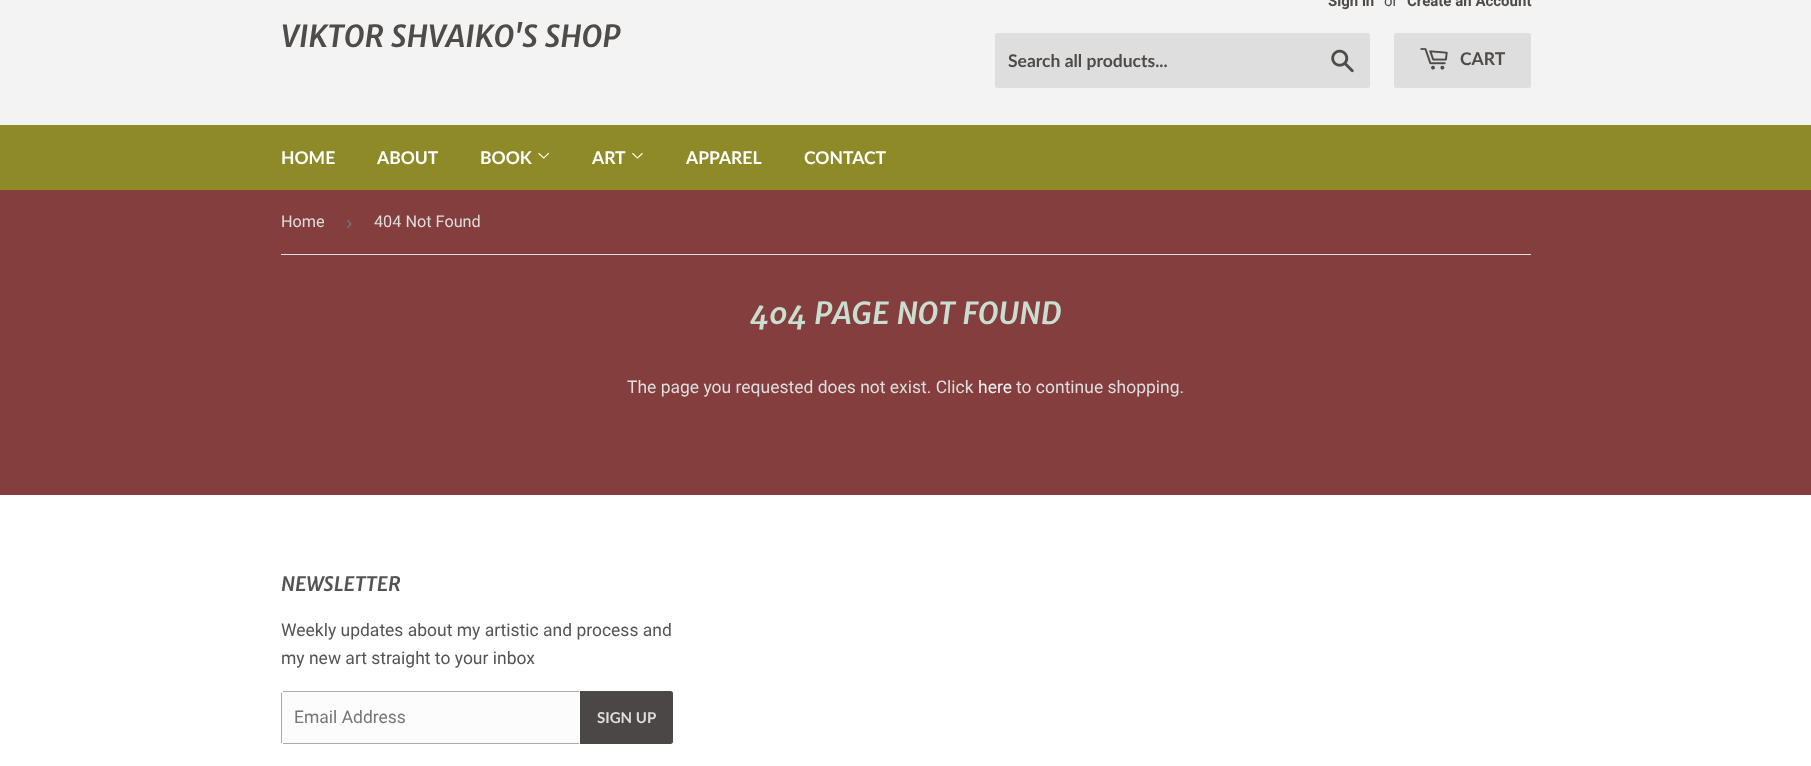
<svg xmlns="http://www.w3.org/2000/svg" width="1811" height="766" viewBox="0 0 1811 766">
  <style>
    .t1 { font: italic bold 30.25px Merriweather Sans; fill: #4e4b48; }
    .t2 { font: bold 15px Roboto; fill: #4e4b48; }
    .t3 { font: 15px Roboto; fill: #4e4b48; }
    .t4 { font: bold 17.5px Lato; fill: #4e4b48; }
    .t5 { font: bold 17.5px Lato; fill: #fff; }
    .t6 { font: 16.25px Roboto; fill: #dedede; }
    .t7 { font: 19px Liberation Sans; fill: #767676; }
    .t8 { font: italic bold 30.25px Merriweather Sans; fill: #c9ded1; }
    .t9 { font: 17.5px Roboto; fill: #dedede; }
    .t10 { font: 17.5px Roboto; fill: #f3f3f3; }
    .t11 { font: italic bold 19.75px Merriweather Sans; fill: #545454; }
    .t12 { font: 17.5px Roboto; fill: #545454; }
    .t13 { font: 17.5px Roboto; fill: #767676; }
    .t14 { font: bold 15px Lato; fill: #dedede; }
  </style>
  <rect width="100%" height="100%" fill="#843e3e"/>
  <rect x="0" y="0" width="1811" height="125" fill="#f3f3f3"/>
  <text x="281" y="47" class="t1">VIKTOR SHVAIKO'S SHOP</text>
  <text x="1328" y="6" class="t2">Sign in</text>
  <text x="1384" y="6" class="t3">or</text>
  <text x="1407" y="6" class="t2">Create an Account</text>
  <rect x="995" y="33" width="375" height="55" rx="2.5" fill="#dedede"/>
  <text x="1008" y="67" class="t4">Search all products...</text>
  <image x="1331" y="49" width="23" height="24" href="images/1.png"/>
  <rect x="1394" y="33" width="137" height="55" rx="2.5" fill="#dedede"/>
  <image x="1420" y="48" width="28" height="22" href="images/2.png"/>
  <text x="1460" y="65" class="t4">CART</text>
  <rect x="0" y="125" width="1811" height="65" fill="#8d8a27"/>
  <text x="281" y="164" class="t5">HOME</text>
  <text x="377" y="164" class="t5">ABOUT</text>
  <text x="480" y="164" class="t5">BOOK</text>
  <image x="538" y="152" width="11" height="7" href="images/3.png"/>
  <text x="592" y="164" class="t5">ART</text>
  <image x="632" y="152" width="11" height="7" href="images/4.png"/>
  <text x="686" y="164" class="t5">APPAREL</text>
  <text x="804" y="164" class="t5">CONTACT</text>
  <rect x="281" y="254" width="1250" height="1" fill="#dedede"/>
  <text x="281" y="227" class="t6">Home</text>
  <text x="346" y="229" class="t7">›</text>
  <text x="374" y="227" class="t6">404 Not Found</text>
  <text x="750" y="324" class="t8">404 PAGE NOT FOUND</text>
  <text x="627" y="393" class="t9">The page you requested does not exist. Click</text>
  <text x="978" y="393" class="t10">here</text>
  <text x="1016" y="393" class="t9">to continue shopping.</text>
  <rect x="0" y="495" width="1811" height="271" fill="#fff"/>
  <text x="281" y="591" class="t11">NEWSLETTER</text>
  <text x="281" y="636" class="t12">Weekly updates about my artistic and process and</text>
  <text x="281" y="664" class="t12">my new art straight to your inbox</text>
  <rect x="281" y="691" width="299" height="53" rx="2.5" fill="#fcfcfc"/>
  <rect x="283" y="691" width="296" height="1" fill="#ababab"/>
  <rect x="283" y="743" width="296" height="1" fill="#ababab"/>
  <rect x="281" y="693" width="1" height="50" fill="#ababab"/>
  <text x="294" y="723" class="t13">Email Address</text>
  <path d="M580 691H670.5C672 691 673 692 673 693.5V741.5C673 743 672 744 670.5 744H580Z" fill="#4c4747"/>
  <text x="597" y="723" class="t14">SIGN UP</text>
</svg>
